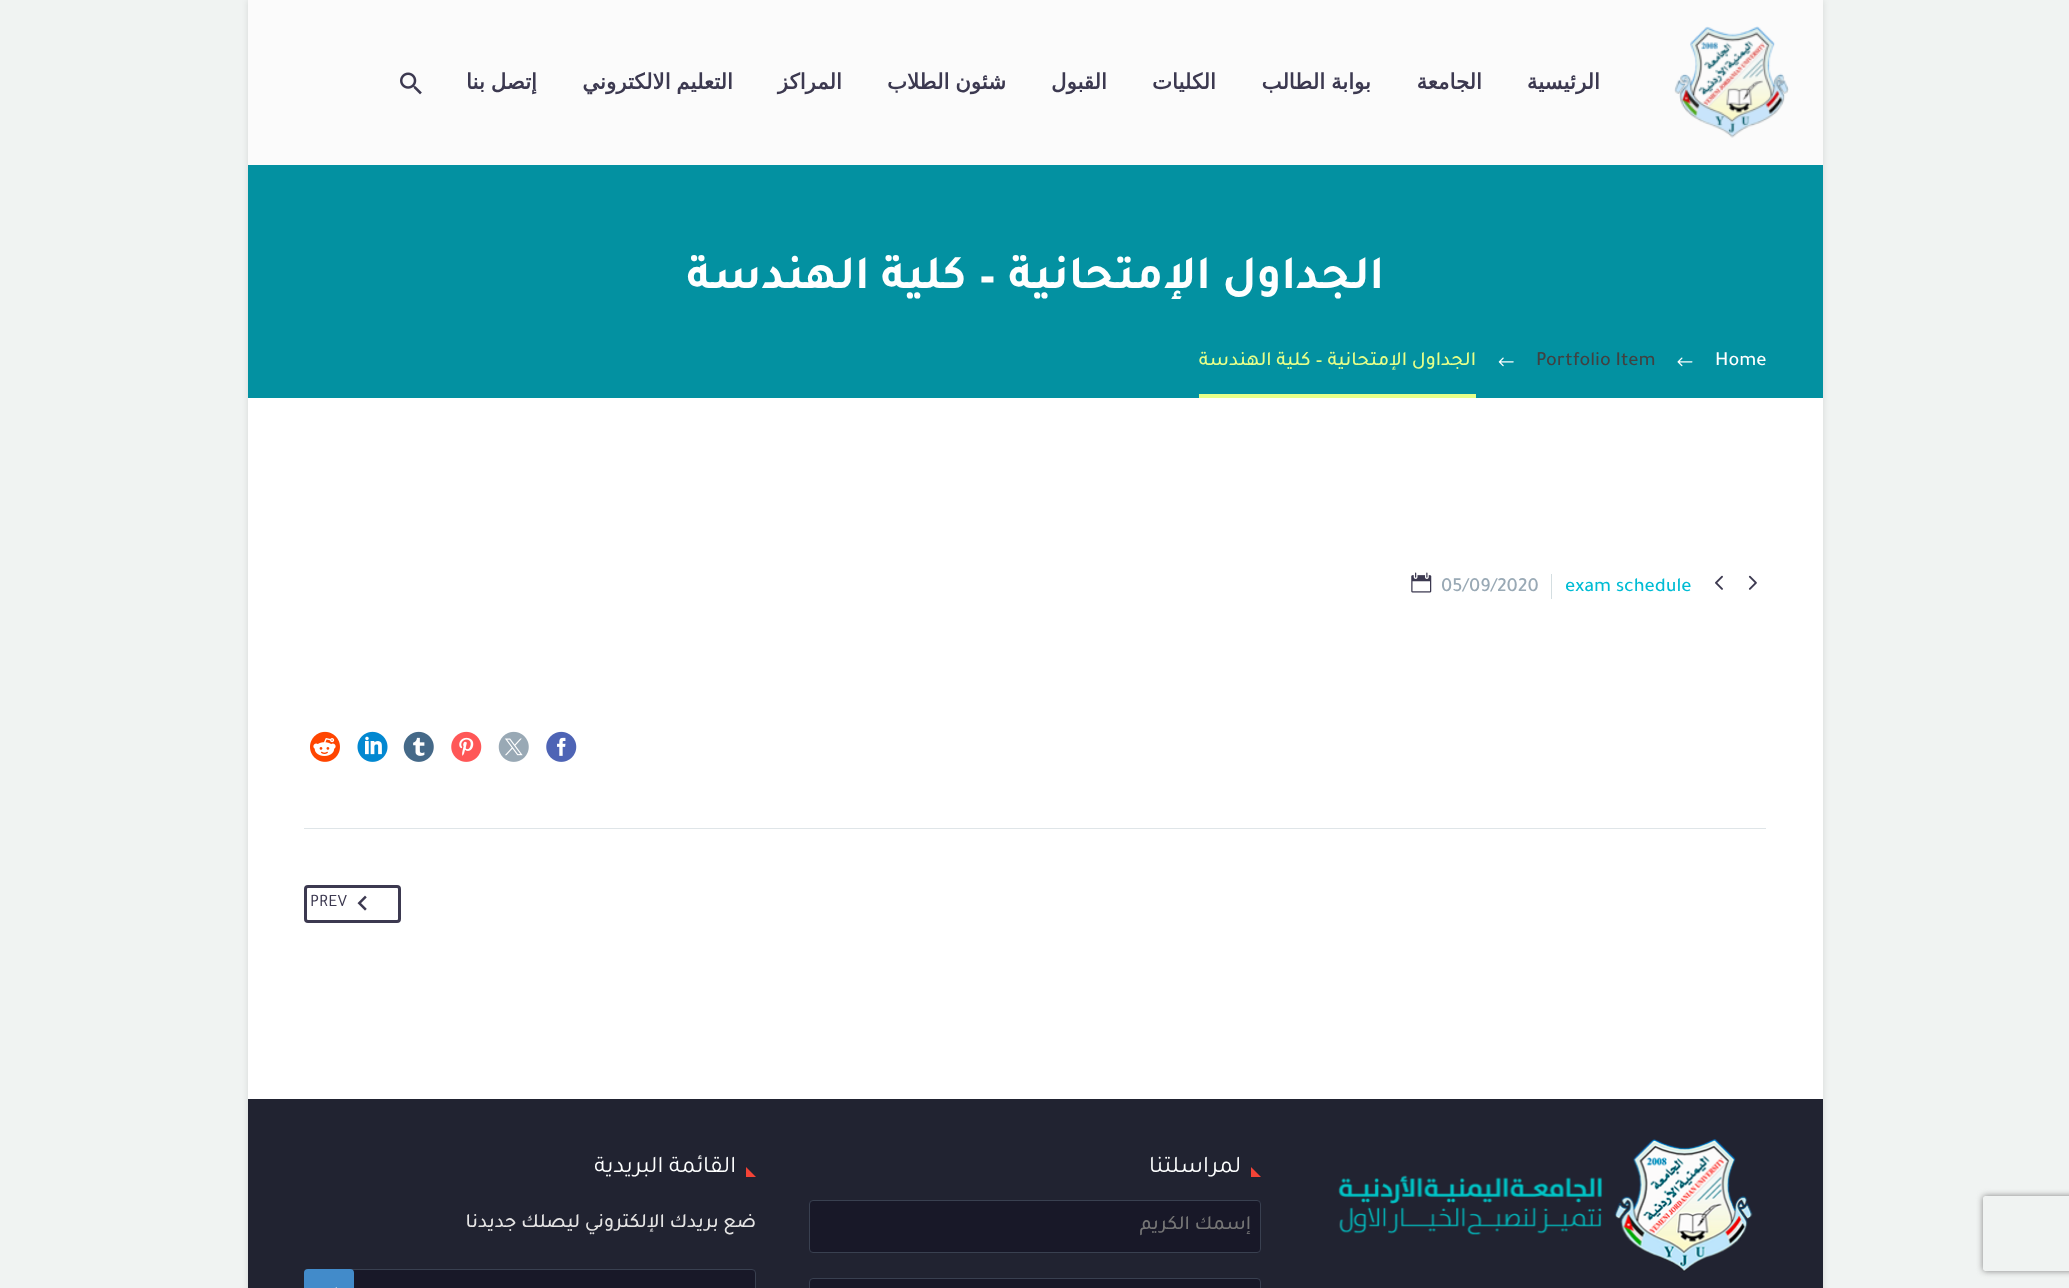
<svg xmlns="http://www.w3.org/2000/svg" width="2069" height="1288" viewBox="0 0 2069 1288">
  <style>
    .t1 { font: bold 21.25px DejaVu Sans; direction: rtl; fill: #3c3950; }
    .t2 { font: bold 47.5px Tajawal; direction: rtl; fill: #feffff; }
    .t3 { font: 500 20px Tajawal; fill: #feffff; }
    .t4 { font: 500 20px Tajawal; fill: #414141; }
    .t5 { font: 500 20px Tajawal; direction: rtl; fill: #e7ff89; }
    .t6 { font: 500 20px Tajawal; fill: #00bcd4; }
    .t7 { font: 500 20px Tajawal; fill: #99a9b5; }
    .t8 { font: 17.5px Tajawal; fill: #3c3950; }
    .t9 { font: 23.75px Tajawal; direction: rtl; fill: #feffff; }
    .t10 { font: 500 20px Tajawal; direction: rtl; fill: #757575; }
    .t11 { font: 500 20px Tajawal; direction: rtl; fill: #e5e4e4; }
  </style>
  <defs>
    <clipPath id="clip1"><path d="M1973 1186H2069V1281H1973ZM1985.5 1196H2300.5C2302 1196 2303 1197 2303 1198.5V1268.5C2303 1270 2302 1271 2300.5 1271H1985.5C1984 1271 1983 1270 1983 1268.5V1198.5C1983 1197 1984 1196 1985.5 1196Z" clip-rule="evenodd"/></clipPath>
  </defs>
  <rect width="100%" height="100%" fill="#f0f3f2"/>
  <g clip-path="url(#clip1)">
    <rect x="1983" y="1196" width="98" height="75" rx="2.5" fill="#808080" filter="blur(3px)"/>
  </g>
  <rect x="248" y="0" width="1575" height="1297" fill="#0000001c" filter="blur(3px)"/>
  <rect x="248" y="0" width="1575" height="165" fill="#fbfbfb"/>
  <image x="1674" y="26" width="115" height="112" href="images/1.png"/>
  <text x="1600" y="89" class="t1">الرئيسية</text>
  <text x="1482" y="89" class="t1">الجامعة</text>
  <text x="1371" y="89" word-spacing="-1" class="t1">بوابة الطالب</text>
  <text x="1216" y="89" class="t1">الكليات</text>
  <text x="1107" y="89" class="t1">القبول</text>
  <text x="1006" y="89" word-spacing="-1" class="t1">شئون الطلاب</text>
  <text x="842" y="89" class="t1">المراكز</text>
  <text x="733" y="89" word-spacing="-1" class="t1">التعليم الالكتروني</text>
  <text x="537" y="89" word-spacing="-1" class="t1">إتصل بنا</text>
  <image x="400" y="72" width="22" height="23" href="images/2.png"/>
  <rect x="248" y="165" width="1575" height="233" fill="#0391a1"/>
  <text x="1384" y="288" class="t2">الجداول الإمتحانية – كلية الهندسة</text>
  <text x="1715" y="365" class="t3">Home</text>
  <image x="1677" y="357" width="16" height="10" href="images/3.png"/>
  <text x="1536" y="365" class="t4">Portfolio Item</text>
  <image x="1498" y="357" width="16" height="10" href="images/4.png"/>
  <rect x="1199" y="394" width="277" height="4" fill="#e7ff89"/>
  <text x="1476" y="365" class="t5">الجداول الإمتحانية – كلية الهندسة</text>
  <rect x="248" y="398" width="1575" height="701" fill="#fff"/>
  <image x="1748" y="575" width="9" height="15" href="images/5.png"/>
  <image x="1715" y="575" width="8" height="15" href="images/6.png"/>
  <text x="1565" y="591" class="t6">exam schedule</text>
  <rect x="1551" y="574" width="1" height="25" fill="#d4dee1"/>
  <text x="1441" y="591" class="t7">05/09/2020</text>
  <image x="1411" y="572" width="21" height="21" href="images/7.png"/>
  <image x="546" y="731" width="31" height="31" href="images/8.png"/>
  <image x="498" y="731" width="31" height="31" href="images/9.png"/>
  <image x="451" y="731" width="31" height="31" href="images/10.png"/>
  <image x="403" y="731" width="31" height="31" href="images/11.png"/>
  <image x="357" y="731" width="31" height="31" href="images/12.png"/>
  <image x="310" y="731" width="30" height="31" href="images/13.png"/>
  <rect x="304" y="828" width="1462" height="1" fill="#dfe5e8"/>
  <rect x="305.5" y="886.5" width="94" height="35" rx="2.5" fill="none" stroke="#3c3950" stroke-width="3"/>
  <image x="357" y="895" width="10" height="16" href="images/14.png"/>
  <text x="310" y="906" class="t8">PREV</text>
  <rect x="248" y="1099" width="1575" height="189" fill="#212331"/>
  <image x="1338" y="1139" width="415" height="133" href="images/15.png"/>
  <path d="M1251 1167V1177H1261Z" fill="#f44336"/>
  <text x="1241" y="1172" class="t9">لمراسلتنا</text>
  <rect x="809.5" y="1200.5" width="451" height="52" rx="3.5" fill="#181828" stroke="#394050"/>
  <text x="1251" y="1229" class="t10">إسمك الكريم</text>
  <rect x="809.5" y="1278.5" width="451" height="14" rx="3.5" fill="#181828" stroke="#394050"/>
  <path d="M746 1167V1177H756Z" fill="#f44336"/>
  <text x="736" y="1172" class="t9">القائمة البريدية</text>
  <text x="756" y="1227" class="t11">ضع بريدك الإلكتروني ليصلك جديدنا</text>
  <rect x="304.5" y="1269.5" width="451" height="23" rx="3.5" fill="#181828" stroke="#394050"/>
  <rect x="304" y="1269" width="50" height="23" rx="4" fill="#428bca"/>
  <image x="335" y="1287" width="2" height="1" href="images/16.png"/>
</svg>
